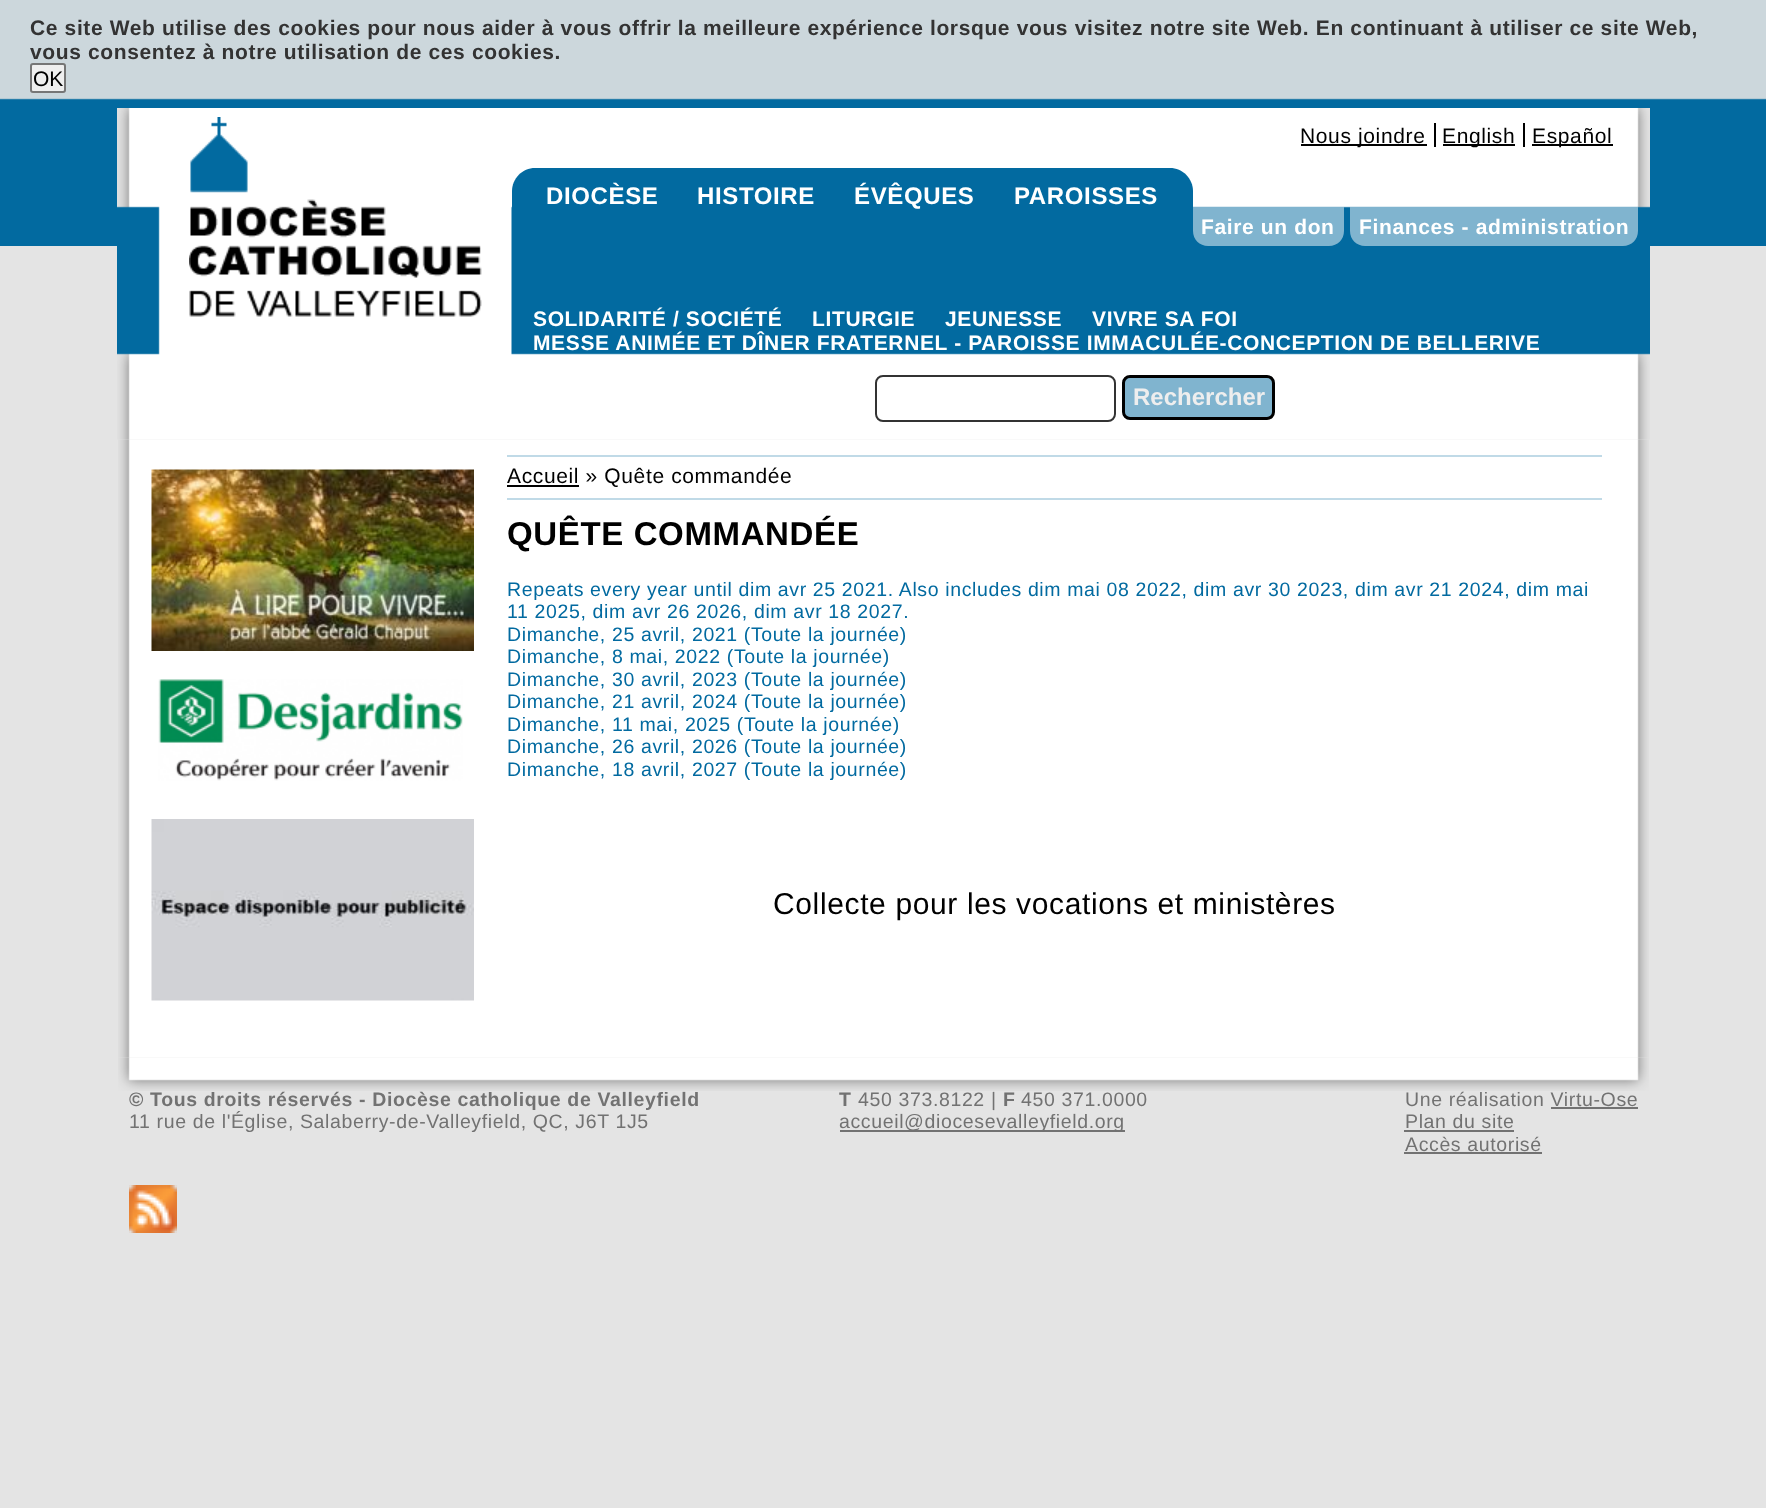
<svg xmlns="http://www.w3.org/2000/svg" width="1766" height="1508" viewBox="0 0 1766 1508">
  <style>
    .t1 { font: bold 21px Liberation Sans; letter-spacing: 0.63px; fill: #333; }
    .t2 { font: 21px Liberation Sans; fill: #000; }
    .t3 { font: 21px Liberation Sans; letter-spacing: 0.63px; fill: #000; }
    .t4 { font: bold 24px Liberation Sans; letter-spacing: 0.63px; fill: #fff; }
    .t5 { font: bold 21px Liberation Sans; letter-spacing: 0.63px; fill: #fff; }
    .t6 { font: bold 24px Liberation Sans; fill: #eee; }
    .t7 { font: bold 33px Liberation Sans; letter-spacing: 0.63px; fill: #000; }
    .t8 { font: 19.5px Liberation Sans; letter-spacing: 0.63px; fill: #026aa0; }
    .t9 { font: 30px Liberation Sans; letter-spacing: 0.63px; fill: #000; }
    .t10 { font: bold 19.5px Liberation Sans; letter-spacing: 0.63px; fill: #727272; }
    .t11 { font: 19.5px Liberation Sans; letter-spacing: 0.63px; fill: #727272; }
  </style>
  <rect width="100%" height="100%" fill="#e4e4e4"/>
  <image x="0" y="98" width="1766" height="148" href="images/1.png"/>
  <rect x="0" y="0" width="1766" height="100" fill="#026aa01a"/>
  <text x="30" y="35" class="t1">Ce site Web utilise des cookies pour nous aider à vous offrir la meilleure expérience lorsque vous visitez notre site Web. En continuant à utiliser ce site Web,</text>
  <text x="30" y="59" class="t1">vous consentez à notre utilisation de ces cookies.</text>
  <rect x="31" y="64" width="34" height="28" rx="2" fill="#efefef" stroke="#767676" stroke-width="2"/>
  <text x="33" y="86" class="t2">OK</text>
  <image x="118" y="439" width="1531" height="619" href="images/4.png"/>
  <image x="117" y="108" width="1533" height="332" href="images/2.png"/>
  <image x="189" y="117" width="293" height="200" href="images/3.png"/>
  <rect x="1434" y="123" width="2" height="24" fill="#000"/>
  <rect x="1301" y="144" width="126" height="2" fill="#000"/>
  <text x="1300" y="143" class="t3">Nous joindre</text>
  <rect x="1523" y="123" width="2" height="24" fill="#000"/>
  <rect x="1443" y="144" width="72" height="2" fill="#000"/>
  <text x="1442" y="143" class="t3">English</text>
  <rect x="1532" y="144" width="81" height="2" fill="#000"/>
  <text x="1532" y="143" class="t3">Español</text>
  <path d="M535 168H1170C1182.5 168 1193 178.5 1193 191V210H512V191C512 178.5 522.5 168 535 168Z" fill="#026aa0"/>
  <text x="546" y="204" class="t4">DIOCÈSE</text>
  <text x="697" y="204" class="t4">HISTOIRE</text>
  <text x="854" y="204" class="t4">ÉVÊQUES</text>
  <text x="1014" y="204" class="t4">PAROISSES</text>
  <path d="M1193 207H1344V231C1344 239.5 1337.5 246 1329 246H1208C1199.5 246 1193 239.5 1193 231Z" fill="#80b4cf"/>
  <text x="1201" y="234" class="t5">Faire un don</text>
  <path d="M1350 207H1638V231C1638 239.5 1631.5 246 1623 246H1365C1356.5 246 1350 239.5 1350 231Z" fill="#80b4cf"/>
  <text x="1359" y="234" class="t5">Finances - administration</text>
  <text x="533" y="326" class="t5">SOLIDARITÉ / SOCIÉTÉ</text>
  <text x="812" y="326" class="t5">LITURGIE</text>
  <text x="945" y="326" class="t5">JEUNESSE</text>
  <text x="1092" y="326" class="t5">VIVRE SA FOI</text>
  <text x="533" y="350" class="t5">MESSE ANIMÉE ET DÎNER FRATERNEL - PAROISSE IMMACULÉE-CONCEPTION DE BELLERIVE</text>
  <rect x="876" y="376" width="239" height="45" rx="7" fill="none" stroke="#333" stroke-width="2"/>
  <rect x="1123.5" y="376.5" width="150" height="42" rx="6.5" fill="#80b4cf" stroke="#000" stroke-width="3"/>
  <text x="1133" y="405" class="t6">Rechercher</text>
  <image x="151" y="469" width="323" height="182" href="images/5.png"/>
  <image x="158" y="679" width="305" height="102" href="images/6.png"/>
  <image x="151" y="819" width="323" height="182" href="images/7.png"/>
  <rect x="507" y="455" width="1095" height="2" fill="#c0dae7"/>
  <rect x="507" y="498" width="1095" height="2" fill="#c0dae7"/>
  <rect x="507" y="485" width="72" height="2" fill="#000"/>
  <text x="507" y="483" class="t3">Accueil » Quête commandée</text>
  <text x="507" y="545" class="t7">QUÊTE COMMANDÉE</text>
  <text x="507" y="596" class="t8">Repeats every year until dim avr 25 2021. Also includes dim mai 08 2022, dim avr 30 2023, dim avr 21 2024, dim mai</text>
  <text x="507" y="618" class="t8">11 2025, dim avr 26 2026, dim avr 18 2027.</text>
  <text x="507" y="641" class="t8">Dimanche, 25 avril, 2021 (Toute la journée)</text>
  <text x="507" y="663" class="t8">Dimanche, 8 mai, 2022 (Toute la journée)</text>
  <text x="507" y="686" class="t8">Dimanche, 30 avril, 2023 (Toute la journée)</text>
  <text x="507" y="708" class="t8">Dimanche, 21 avril, 2024 (Toute la journée)</text>
  <text x="507" y="731" class="t8">Dimanche, 11 mai, 2025 (Toute la journée)</text>
  <text x="507" y="753" class="t8">Dimanche, 26 avril, 2026 (Toute la journée)</text>
  <text x="507" y="776" class="t8">Dimanche, 18 avril, 2027 (Toute la journée)</text>
  <text x="773" y="914" class="t9">Collecte pour les vocations et ministères</text>
  <image x="118" y="1057" width="1531" height="34" href="images/8.png"/>
  <text x="129" y="1106" class="t10">© Tous droits réservés - Diocèse catholique de Valleyfield</text>
  <text x="129" y="1128" class="t11">11 rue de l'Église, Salaberry-de-Valleyfield, QC, J6T 1J5</text>
  <text x="839" y="1106" class="t10">T</text>
  <text x="858" y="1106" class="t11">450 373.8122 |</text>
  <text x="1003" y="1106" class="t10">F</text>
  <text x="1021" y="1106" class="t11">450 371.0000</text>
  <rect x="840" y="1130" width="285" height="2" fill="#727272"/>
  <text x="839" y="1128" class="t11">accueil@diocesevalleyfield.org</text>
  <text x="1405" y="1106" class="t11">Une réalisation Virtu-Ose</text>
  <rect x="1551" y="1107" width="87" height="2" fill="#727272"/>
  <text x="1405" y="1128" class="t11">Plan du site</text>
  <rect x="1404" y="1130" width="110" height="2" fill="#727272"/>
  <text x="1405" y="1151" class="t11">Accès autorisé</text>
  <rect x="1404" y="1152" width="138" height="2" fill="#727272"/>
  <image x="129" y="1185" width="48" height="48" href="images/9.png"/>
</svg>
